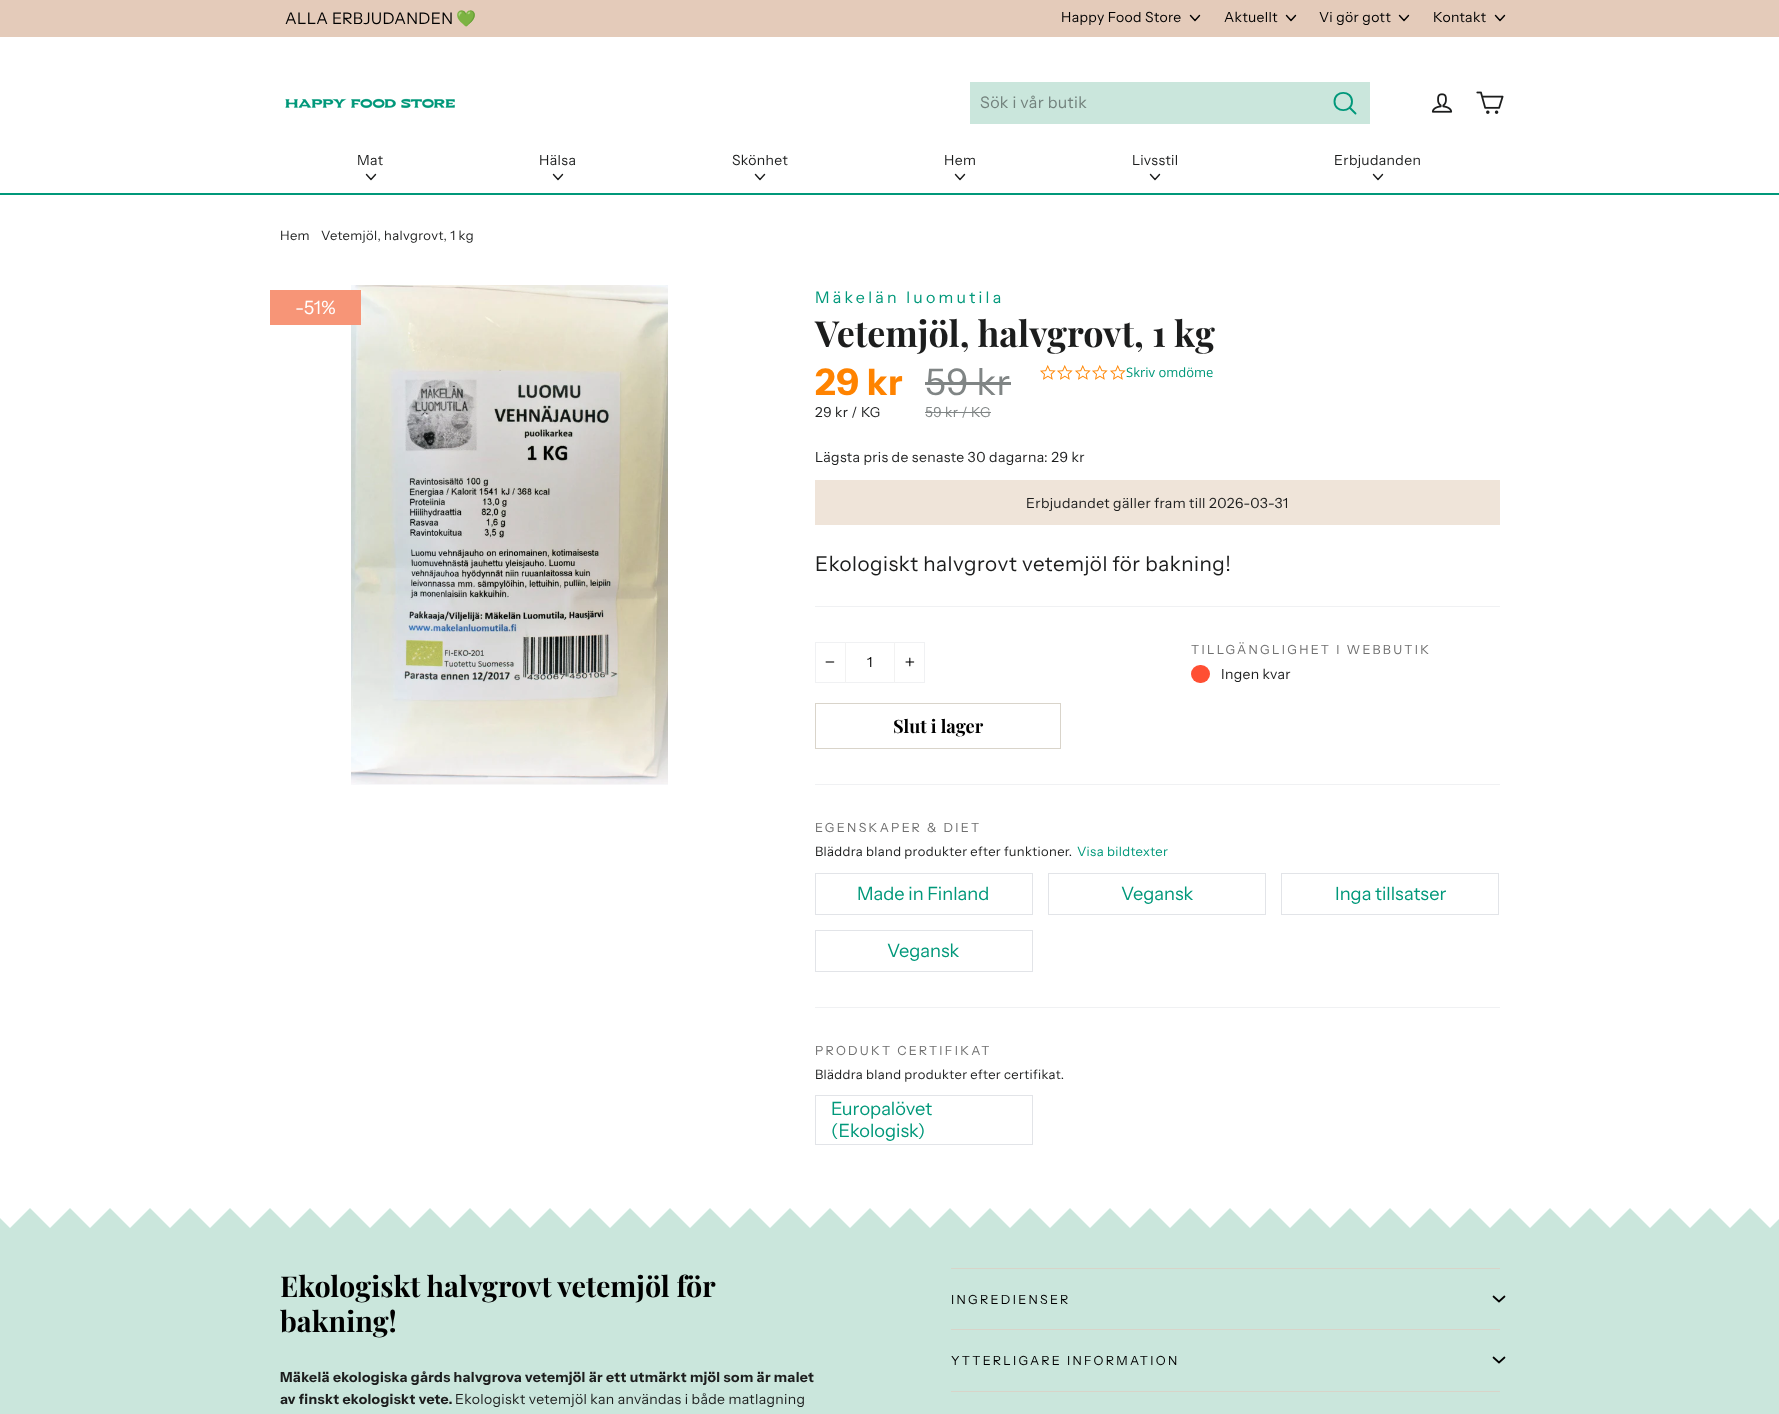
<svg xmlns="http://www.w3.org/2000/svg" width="1779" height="1414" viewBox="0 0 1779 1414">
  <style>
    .t1 { font: 16px Instrument Sans; letter-spacing: 0.35px; fill: #000; }
    .t2 { font: 16px Noto Color Emoji; letter-spacing: 0.35px; fill: #000; }
    .t3 { font: 14px Instrument Sans; letter-spacing: 0.35px; fill: #000; }
    .t4 { font: 16px Instrument Sans; letter-spacing: 0.4px; fill: #73827d; }
    .t5 { font: 14px Instrument Sans; letter-spacing: 0.35px; fill: #1c1d1d; }
    .t6 { font: 13px Instrument Sans; letter-spacing: 0.35px; fill: #1c1d1d; }
    .t7 { font: 18.25px Instrument Sans; letter-spacing: 0.35px; fill: #fff; }
    .t8 { font: 16px Instrument Sans; letter-spacing: 3.25px; fill: #00987a; }
    .t9 { font: bold 36px Playfair Display; fill: #1c1d1d; }
    .t10 { font: bold 36.5px Instrument Sans; letter-spacing: 0.35px; fill: #ff8300; }
    .t11 { font: 13.75px Instrument Sans; letter-spacing: 0.35px; fill: #1c1d1d; }
    .t12 { font: 36.5px Instrument Sans; letter-spacing: 0.35px; fill: #808585; }
    .t13 { font: 13.75px Instrument Sans; letter-spacing: 0.35px; fill: #808585; }
    .t14 { font: 13px Open Sans; fill: #00987a; }
    .t15 { font: 20.6px Instrument Sans; letter-spacing: 0.5px; fill: #1c1d1d; }
    .t16 { font: bold 18.25px Playfair Display; fill: #000; }
    .t17 { font: 12.6px Instrument Sans; letter-spacing: 2.3px; fill: #6f6f6f; }
    .t18 { font: 13px Instrument Sans; letter-spacing: 0.35px; fill: #00987a; }
    .t19 { font: 18.25px Instrument Sans; fill: #00987a; }
    .t20 { font: bold 28.75px Playfair Display; fill: #000; }
    .t21 { font: bold 14px Instrument Sans; letter-spacing: 0.35px; fill: #1c1d1d; }
    .t22 { font: 12.6px Instrument Sans; letter-spacing: 2.3px; fill: #000; }
  </style>
  <rect width="100%" height="100%" fill="#fff"/>
  <rect x="0" y="0" width="1779" height="37" fill="#e4cbba"/>
  <text x="285" y="24" class="t1">ALLA ERBJUDANDEN</text>
  <text x="456" y="24" class="t2">💚</text>
  <text x="1061" y="22" class="t3">Happy Food Store</text>
  <path d="M1190.5 15.5L1195 20.5L1199.5 15.5" fill="none" stroke="#000" stroke-width="1.4" stroke-linecap="round" stroke-linejoin="round"/>
  <text x="1224" y="22" class="t3">Aktuellt</text>
  <path d="M1286.5 15.5L1291 20.5L1295.5 15.5" fill="none" stroke="#000" stroke-width="1.4" stroke-linecap="round" stroke-linejoin="round"/>
  <text x="1319" y="22" class="t3">Vi gör gott</text>
  <path d="M1399.5 15.5L1404 20.5L1408.5 15.5" fill="none" stroke="#000" stroke-width="1.4" stroke-linecap="round" stroke-linejoin="round"/>
  <text x="1433" y="22" class="t3">Kontakt</text>
  <path d="M1495.5 15.5L1500 20.5L1504.5 15.5" fill="none" stroke="#000" stroke-width="1.4" stroke-linecap="round" stroke-linejoin="round"/>
  <rect x="0" y="193" width="1779" height="2" fill="#00987a"/>
  <image x="285" y="98" width="170" height="11" href="images/1.png"/>
  <rect x="970" y="82" width="400" height="42" fill="#cae6dc"/>
  <text x="980" y="108" class="t4">Sök i vår butik</text>
  <path d="M1352 101.5C1352 113 1334.5 113 1334.5 101.5C1334.5 90 1352 90 1352 101.5ZM1355.5 113.5L1349.5 107.5" fill="none" stroke="#00987a" stroke-width="1.9" stroke-linecap="round" stroke-linejoin="round"/>
  <image x="1431" y="93" width="22" height="20" href="images/2.png"/>
  <image x="1476" y="91" width="28" height="23" href="images/3.png"/>
  <text x="357" y="165" class="t5">Mat</text>
  <path d="M366.5 174.5L371 179.5L375.5 174.5" fill="none" stroke="#1c1d1d" stroke-width="1.4" stroke-linecap="round" stroke-linejoin="round"/>
  <text x="539" y="165" class="t5">Hälsa</text>
  <path d="M553.5 174.5L558 179.5L562.5 174.5" fill="none" stroke="#1c1d1d" stroke-width="1.4" stroke-linecap="round" stroke-linejoin="round"/>
  <text x="732" y="165" class="t5">Skönhet</text>
  <path d="M755.5 174.5L760 179.5L764.5 174.5" fill="none" stroke="#1c1d1d" stroke-width="1.4" stroke-linecap="round" stroke-linejoin="round"/>
  <text x="944" y="165" class="t5">Hem</text>
  <path d="M955.5 174.5L960 179.5L964.5 174.5" fill="none" stroke="#1c1d1d" stroke-width="1.4" stroke-linecap="round" stroke-linejoin="round"/>
  <text x="1132" y="165" class="t5">Livsstil</text>
  <path d="M1150.5 174.5L1155 179.5L1159.5 174.5" fill="none" stroke="#1c1d1d" stroke-width="1.4" stroke-linecap="round" stroke-linejoin="round"/>
  <text x="1334" y="165" class="t5">Erbjudanden</text>
  <path d="M1373.5 174.5L1378 179.5L1382.5 174.5" fill="none" stroke="#1c1d1d" stroke-width="1.4" stroke-linecap="round" stroke-linejoin="round"/>
  <text x="280" y="240" class="t6">Hem</text>
  <text x="321" y="240" class="t6">Vetemjöl, halvgrovt, 1 kg</text>
  <image x="351" y="285" width="317" height="500" href="images/4.png"/>
  <rect x="270" y="290" width="91" height="35" fill="#f79577"/>
  <text x="295" y="314" class="t7">-51%</text>
  <text x="815" y="303" class="t8">Mäkelän luomutila</text>
  <text x="815" y="347" class="t9">Vetemjöl, halvgrovt, 1 kg</text>
  <text x="815" y="395" class="t10">29 kr</text>
  <text x="815" y="417" class="t11">29 kr / KG</text>
  <text x="925" y="395" class="t12">59 kr</text>
  <rect x="925" y="382" width="86" height="3" fill="#808585"/>
  <text x="925" y="417" class="t13">59 kr / KG</text>
  <rect x="925" y="412" width="66" height="1" fill="#808585"/>
  <image x="1040" y="365" width="16" height="15" href="images/5.png"/>
  <image x="1057" y="365" width="16" height="15" href="images/5.png"/>
  <image x="1075" y="365" width="16" height="15" href="images/5.png"/>
  <image x="1092" y="365" width="16" height="15" href="images/5.png"/>
  <image x="1110" y="365" width="16" height="15" href="images/5.png"/>
  <text x="1126" y="377" class="t14">Skriv omdöme</text>
  <text x="815" y="462" class="t5">Lägsta pris de senaste 30 dagarna: 29 kr</text>
  <rect x="815" y="480" width="685" height="45" fill="#efe4d9"/>
  <text x="1026" y="508" class="t5">Erbjudandet gäller fram till 2026-03-31</text>
  <text x="815" y="571" class="t15">Ekologiskt halvgrovt vetemjöl för bakning!</text>
  <rect x="815" y="606" width="685" height="1" fill="#f0f1f3"/>
  <rect x="815.5" y="642.5" width="109" height="40" fill="none" stroke="#f0f1f3"/>
  <rect x="845" y="642" width="1" height="41" fill="#f2f2f2"/>
  <image x="825" y="661" width="10" height="2" href="images/6.png"/>
  <text x="867" y="667" class="t3">1</text>
  <rect x="894" y="642" width="1" height="41" fill="#f2f2f2"/>
  <image x="905" y="657" width="10" height="10" href="images/7.png"/>
  <rect x="815.5" y="703.5" width="245" height="45" fill="none" stroke="#d9d4ca"/>
  <text x="893" y="733" class="t16">Slut i lager</text>
  <text x="1191" y="654" class="t17">TILLGÄNGLIGHET I WEBBUTIK</text>
  <rect x="1191" y="665" width="19" height="18" rx="9" fill="#ff4f33"/>
  <text x="1221" y="679" class="t5">Ingen kvar</text>
  <rect x="815" y="784" width="685" height="1" fill="#f0f1f3"/>
  <text x="815" y="832" class="t17">EGENSKAPER &amp; DIET</text>
  <text x="815" y="856" class="t6">Bläddra bland produkter efter funktioner.</text>
  <text x="1077" y="856" class="t18">Visa bildtexter</text>
  <rect x="815.5" y="873.5" width="217" height="41" fill="none" stroke="#e2e4e8"/>
  <text x="857" y="900" class="t19">Made in Finland</text>
  <rect x="1048.5" y="873.5" width="217" height="41" fill="none" stroke="#e2e4e8"/>
  <text x="1121" y="900" class="t19">Vegansk</text>
  <rect x="1281.5" y="873.5" width="217" height="41" fill="none" stroke="#e2e4e8"/>
  <text x="1335" y="900" class="t19">Inga tillsatser</text>
  <rect x="815.5" y="930.5" width="217" height="41" fill="none" stroke="#e2e4e8"/>
  <text x="887" y="957" class="t19">Vegansk</text>
  <rect x="815" y="1007" width="685" height="1" fill="#f0f1f3"/>
  <text x="815" y="1055" class="t17">PRODUKT CERTIFIKAT</text>
  <text x="815" y="1079" class="t6">Bläddra bland produkter efter certifikat.</text>
  <rect x="815.5" y="1095.5" width="217" height="49" fill="none" stroke="#e2e4e8"/>
  <text x="831" y="1115" class="t19">Europalövet</text>
  <text x="831" y="1137" class="t19">(Ekologisk)</text>
  <rect x="0" y="1208" width="1779" height="206" fill="#cae6dc"/>
  <image x="0" y="1208" width="1779" height="20" href="images/8.png"/>
  <text x="280" y="1297" class="t20">Ekologiskt halvgrovt vetemjöl för</text>
  <text x="280" y="1332" class="t20">bakning!</text>
  <text x="280" y="1382" class="t21">Mäkelä ekologiska gårds halvgrova vetemjöl är ett utmärkt mjöl som är malet</text>
  <text x="280" y="1404" class="t21">av finskt ekologiskt vete.</text>
  <text x="455" y="1404" class="t5">Ekologiskt vetemjöl kan användas i både matlagning</text>
  <rect x="951" y="1391" width="549" height="1" fill="#d8d4c9"/>
  <rect x="951" y="1268" width="549" height="1" fill="#d8d4c9"/>
  <text x="951" y="1304" class="t22">INGREDIENSER</text>
  <path d="M1493.5 1296.5L1499 1301.5L1504.5 1296.5" fill="none" stroke="#000" stroke-width="1.7" stroke-linecap="round" stroke-linejoin="round"/>
  <rect x="951" y="1329" width="549" height="1" fill="#d8d4c9"/>
  <text x="951" y="1365" class="t22">YTTERLIGARE INFORMATION</text>
  <path d="M1493.5 1357.5L1499 1362.5L1504.5 1357.5" fill="none" stroke="#000" stroke-width="1.7" stroke-linecap="round" stroke-linejoin="round"/>
</svg>
